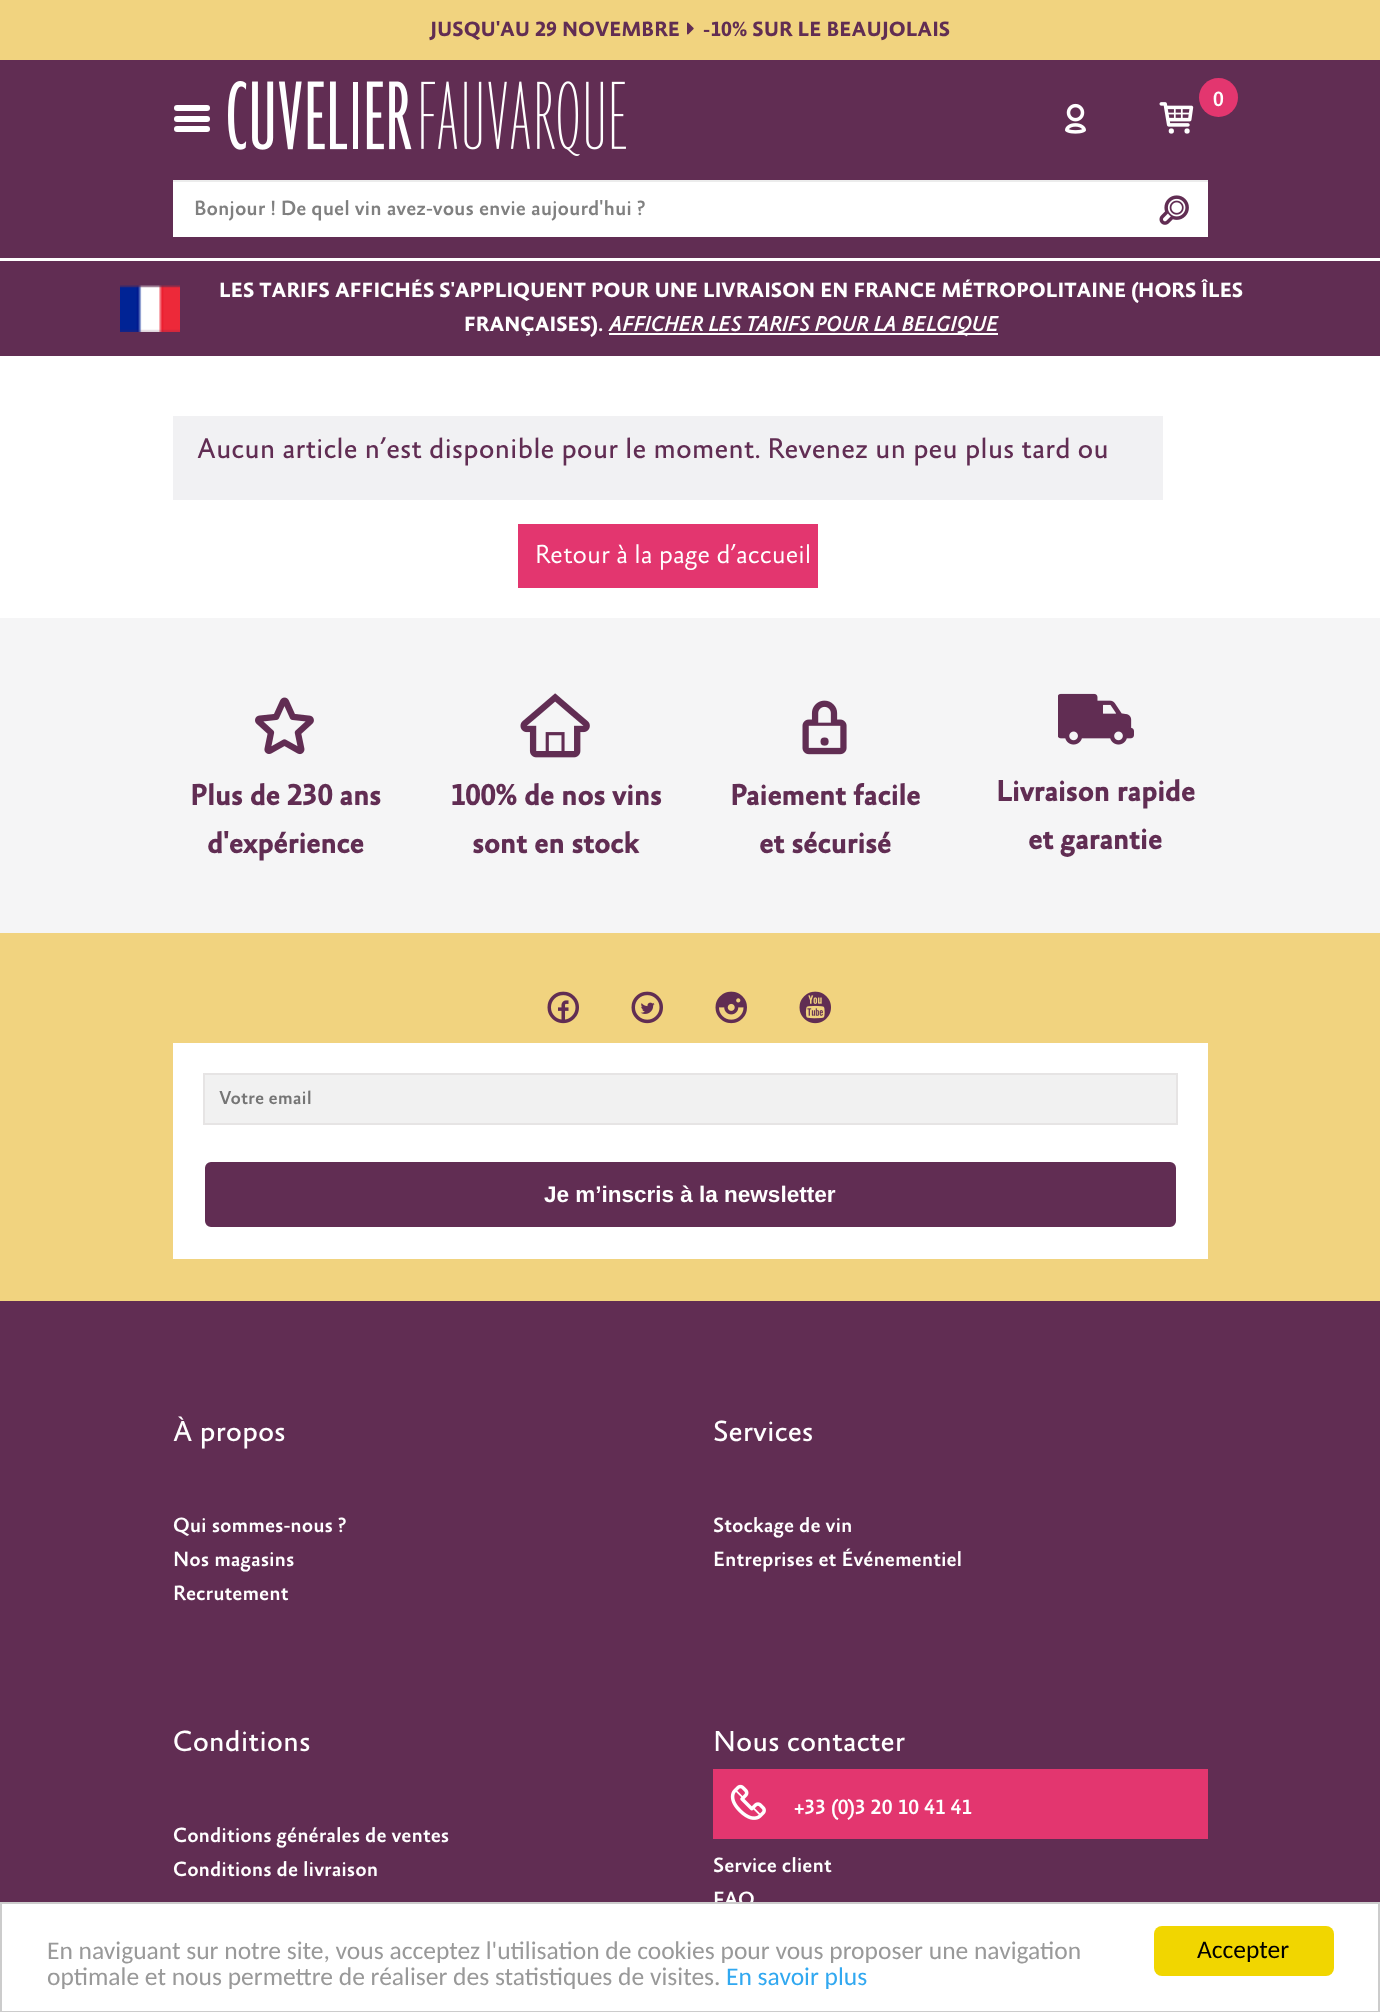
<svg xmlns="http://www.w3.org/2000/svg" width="1380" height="2012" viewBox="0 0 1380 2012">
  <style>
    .t1 { font: bold 21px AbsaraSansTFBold; fill: #612d53; }
    .t2 { font: 500 21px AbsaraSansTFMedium; fill: #fff; }
    .t3 { font: 500 21px AbsaraSansTFMedium; fill: #808080; }
    .t4 { font: bold 21px AbsaraSansTFBold; fill: #fff; }
    .t5 { font: italic bold 21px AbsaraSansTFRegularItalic; fill: #fff; }
    .t6 { font: 28.8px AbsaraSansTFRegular; fill: #612d53; }
    .t7 { font: 300 26.4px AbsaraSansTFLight; fill: #fff; }
    .t8 { font: bold 29.5px AbsaraSansTFMedium; fill: #612d53; }
    .t9 { font: 500 19px 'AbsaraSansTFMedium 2'; fill: #757575; }
    .t10 { font: bold 22.5px Liberation Sans; fill: #fff; }
    .t11 { font: 29.5px AbsaraSansTFRegular; fill: #fff; }
    .t12 { font: 500 21px 'AbsaraSansTFMedium 2'; fill: #fff; }
    .t13 { font: 25.5px Carlito; fill: #999; }
    .t14 { font: 25.5px Carlito; fill: #31a8f0; }
    .t15 { font: 25.5px Carlito; fill: #000; }
  </style>
  <rect width="100%" height="100%" fill="#fff"/>
  <rect x="0" y="60" width="1380" height="198" fill="#612d53"/>
  <rect x="0" y="0" width="1380" height="60" fill="#f1d37f"/>
  <text x="430" y="36" class="t1">JUSQU'AU 29 NOVEMBRE</text>
  <image x="687" y="22" width="7" height="13" href="images/1.png"/>
  <text x="703" y="36" class="t1">-10% SUR LE BEAUJOLAIS</text>
  <image x="228" y="81" width="398" height="75" href="images/2.png"/>
  <circle cx="1218.5" cy="97.5" r="19.5" fill="#e3366f"/>
  <text x="1213" y="106" class="t2">0</text>
  <image x="1159" y="102" width="35" height="32" href="images/3.png"/>
  <image x="1065" y="103" width="21" height="31" href="images/4.png"/>
  <rect x="174" y="105" width="36" height="6" rx="3" fill="#fff"/>
  <rect x="174" y="116" width="36" height="6" rx="3" fill="#fff"/>
  <rect x="174" y="126" width="36" height="6" rx="3" fill="#fff"/>
  <rect x="173" y="182" width="1035" height="55" fill="#fff"/>
  <rect x="173" y="180" width="1035" height="2" fill="#ececec"/>
  <text x="194" y="215" class="t3">Bonjour ! De quel vin avez-vous envie aujourd'hui ?</text>
  <image x="1159" y="195" width="30" height="30" href="images/5.png"/>
  <rect x="0" y="261" width="1380" height="95" fill="#612d53"/>
  <image x="120" y="285" width="60" height="47" href="images/6.png"/>
  <text x="219" y="297" class="t4">LES TARIFS AFFICHÉS S'APPLIQUENT POUR UNE LIVRAISON EN FRANCE MÉTROPOLITAINE (HORS ÎLES</text>
  <text x="464" y="331" class="t4">FRANÇAISES).</text>
  <rect x="609" y="333" width="389" height="2" fill="#fff"/>
  <text x="609" y="331" class="t5">AFFICHER LES TARIFS POUR LA BELGIQUE</text>
  <rect x="173" y="416" width="990" height="84" fill="#f1f1f3"/>
  <text x="197" y="458" class="t6">Aucun article n’est disponible pour le moment. Revenez un peu plus tard ou</text>
  <rect x="518" y="524" width="300" height="64" fill="#e3366f"/>
  <text x="535" y="563" class="t7">Retour à la page d’accueil</text>
  <rect x="0" y="618" width="1380" height="315" fill="#f5f5f6"/>
  <image x="255" y="697" width="59" height="58" href="images/7.png"/>
  <text x="190" y="805" class="t8">Plus de 230 ans</text>
  <text x="207" y="853" class="t8">d'expérience</text>
  <image x="520" y="693" width="70" height="65" href="images/8.png"/>
  <text x="450" y="805" class="t8">100% de nos vins</text>
  <text x="472" y="853" class="t8">sont en stock</text>
  <image x="802" y="700" width="45" height="55" href="images/9.png"/>
  <text x="730" y="805" class="t8">Paiement facile</text>
  <text x="759" y="853" class="t8">et sécurisé</text>
  <image x="1058" y="693" width="76" height="52" href="images/10.png"/>
  <text x="996" y="801" class="t8">Livraison rapide</text>
  <text x="1028" y="849" class="t8">et garantie</text>
  <rect x="0" y="933" width="1380" height="368" fill="#f1d37f"/>
  <image x="547" y="991" width="32" height="33" href="images/11.png"/>
  <image x="631" y="991" width="32" height="33" href="images/12.png"/>
  <image x="715" y="991" width="32" height="33" href="images/13.png"/>
  <image x="799" y="991" width="32" height="33" href="images/14.png"/>
  <rect x="173" y="1043" width="1035" height="216" fill="#fff"/>
  <rect x="204" y="1074" width="973" height="50" fill="#f1f1f1" stroke="#e6e4e4" stroke-width="2"/>
  <text x="219" y="1104" class="t9">Votre email</text>
  <rect x="204" y="1161" width="973" height="67" rx="7" fill="#612d53" stroke="#fff" stroke-width="2"/>
  <text x="544" y="1202" class="t10">Je m’inscris à la newsletter</text>
  <rect x="0" y="1301" width="1380" height="601" fill="#612d53"/>
  <text x="173" y="1441" class="t11">À propos</text>
  <text x="173" y="1532" class="t12">Qui sommes-nous ?</text>
  <text x="173" y="1566" class="t12">Nos magasins</text>
  <text x="173" y="1600" class="t12">Recrutement</text>
  <text x="713" y="1441" class="t11">Services</text>
  <text x="713" y="1532" class="t12">Stockage de vin</text>
  <text x="713" y="1566" class="t12">Entreprises et Événementiel</text>
  <text x="173" y="1751" class="t11">Conditions</text>
  <text x="173" y="1842" class="t12">Conditions générales de ventes</text>
  <text x="173" y="1876" class="t12">Conditions de livraison</text>
  <text x="713" y="1751" class="t11">Nous contacter</text>
  <rect x="713" y="1769" width="495" height="70" fill="#e3366f"/>
  <image x="730" y="1784" width="36" height="36" href="images/15.png"/>
  <text x="794" y="1814" class="t12">+33 (0)3 20 10 41 41</text>
  <text x="713" y="1872" class="t12">Service client</text>
  <text x="713" y="1906" class="t12">FAQ</text>
  <rect x="1" y="1903" width="1378" height="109" fill="none" stroke="#ccc" stroke-width="2"/>
  <text x="47" y="1959" class="t13">En naviguant sur notre site, vous acceptez l'utilisation de cookies pour vous proposer une navigation</text>
  <text x="47" y="1985" class="t13">optimale et nous permettre de réaliser des statistiques de visites.</text>
  <text x="726" y="1985" class="t14">En savoir plus</text>
  <rect x="1154" y="1926" width="180" height="50" rx="8" fill="#f1d600"/>
  <text x="1197" y="1958" class="t15">Accepter</text>
</svg>
